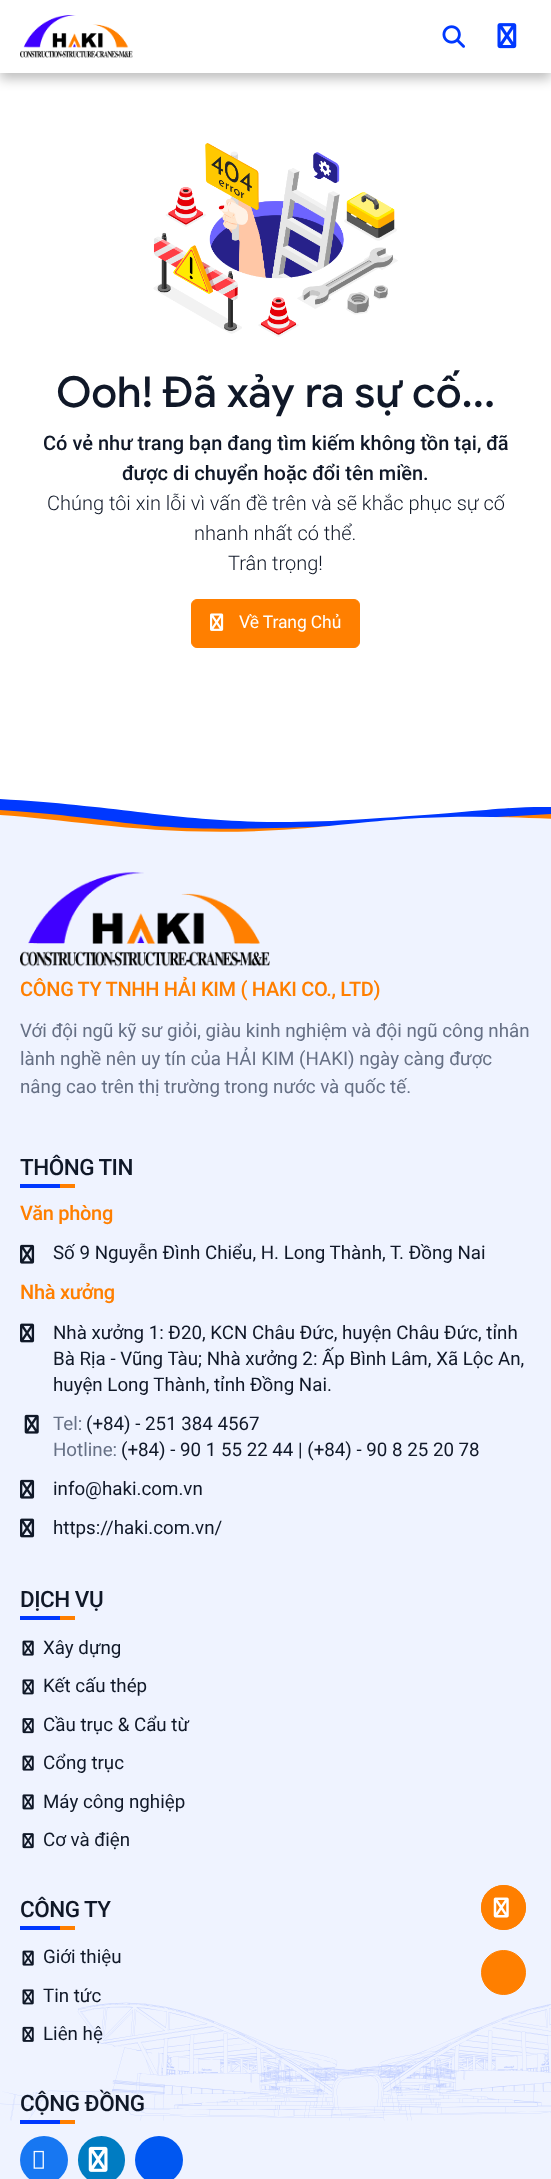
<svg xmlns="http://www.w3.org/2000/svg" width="551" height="2179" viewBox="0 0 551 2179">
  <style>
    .t1 { font: 500 42.75px Google Sans; fill: #101828; }
    .t2 { font: 500 20px Roboto; fill: #101828; }
    .t3 { font: 300 20px Roboto; fill: #101828; }
    .t4 { font: 17.5px Roboto; letter-spacing: -0.1px; fill: #fff; }
    .t5 { font: 500 20px Roboto; letter-spacing: -0.3px; fill: #ff7f00; }
    .t6 { font: 18.75px Roboto; fill: #667085; }
    .t7 { font: 500 22.5px Roboto; letter-spacing: -0.5px; fill: #101828; }
    .t8 { font: 18.75px Roboto; fill: #101828; }
  </style>
  <defs>
    <clipPath id="clip1"><rect x="0" y="799" width="551" height="34"/></clipPath>
  </defs>
  <rect width="100%" height="100%" fill="#fff"/>
  <rect x="0" y="6" width="551" height="73" fill="#00000040" filter="blur(6px)"/>
  <rect x="0" y="0" width="551" height="73" fill="#fff"/>
  <image x="20" y="15" width="113" height="43" href="images/1.png"/>
  <image x="442" y="25" width="23" height="23" href="images/2.png"/>
  <image x="497" y="23" width="20" height="26" href="images/3.png"/>
  <image x="153" y="143" width="245" height="194" href="images/4.png"/>
  <text x="56" y="407" class="t1">Ooh! Đã xảy ra sự cố...</text>
  <text x="43" y="450" class="t2">Có vẻ như trang bạn đang tìm kiếm không tồn tại, đã</text>
  <text x="122" y="480" class="t2">được di chuyển hoặc đổi tên miền.</text>
  <text x="47" y="510" class="t3">Chúng tôi xin lỗi vì vấn đề trên và sẽ khắc phục sự cố</text>
  <text x="194" y="540" class="t3">nhanh nhất có thể.</text>
  <text x="228" y="570" class="t3">Trân trọng!</text>
  <rect x="191.5" y="599.5" width="168" height="48" rx="5.5" fill="#ff7f00" stroke="#ff7f00"/>
  <image x="210" y="613" width="14" height="18" href="images/5.png"/>
  <text x="239" y="628" class="t4">Về Trang Chủ</text>
  <path d="M366 819C483 812 506 806 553 807L551 833H0V799C155 808 199 830 366 819Z" fill="#0038ff"/>
  <path d="M356 825L551 814V833H0V810C150 820 128 836 356 825Z" fill="#ff7f00"/>
  <g clip-path="url(#clip1)">
    <path d="M338 825C436 814 484 816 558 819L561 838H-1V815C82 820 179 843 338 825Z" fill="#eff3ff"/>
  </g>
  <rect x="0" y="833" width="551" height="1346" fill="#eff3ff"/>
  <image x="20" y="872" width="250" height="95" href="images/6.png"/>
  <text x="20" y="996" class="t5">CÔNG TY TNHH HẢI KIM ( HAKI CO., LTD)</text>
  <text x="20" y="1037" class="t6">Với đội ngũ kỹ sư giỏi, giàu kinh nghiệm và đội ngũ công nhân</text>
  <text x="20" y="1065" class="t6">lành nghề nên uy tín của HẢI KIM (HAKI) ngày càng được</text>
  <text x="20" y="1093" class="t6">nâng cao trên thị trường trong nước và quốc tế.</text>
  <text x="20" y="1175" class="t7">THÔNG TIN</text>
  <path d="M35 1188H75V1184H60V1188Z" fill="#ff7f00"/>
  <rect x="20" y="1184" width="40" height="4" fill="#0038ff"/>
  <text x="20" y="1220" class="t5">Văn phòng</text>
  <image x="20" y="1244" width="15" height="20" href="images/7.png"/>
  <text x="53" y="1259" class="t8">Số 9 Nguyễn Đình Chiểu, H. Long Thành, T. Đồng Nai</text>
  <text x="20" y="1299" class="t5">Nhà xưởng</text>
  <image x="20" y="1323" width="15" height="20" href="images/8.png"/>
  <text x="53" y="1339" class="t8">Nhà xưởng 1: Đ20, KCN Châu Đức, huyện Châu Đức, tỉnh</text>
  <text x="53" y="1365" class="t8">Bà Rịa - Vũng Tàu; Nhà xưởng 2: Ấp Bình Lâm, Xã Lộc An,</text>
  <text x="53" y="1391" class="t8">huyện Long Thành, tỉnh Đồng Nai.</text>
  <image x="24" y="1414" width="15" height="20" href="images/9.png"/>
  <text x="53" y="1430" class="t6">Tel:</text>
  <text x="86" y="1430" class="t8">(+84) - 251 384 4567</text>
  <text x="53" y="1456" class="t6">Hotline:</text>
  <text x="121" y="1456" class="t8">(+84) - 90 1 55 22 44 | (+84) - 90 8 25 20 78</text>
  <image x="20" y="1479" width="15" height="20" href="images/7.png"/>
  <text x="53" y="1495" class="t8">info@haki.com.vn</text>
  <image x="20" y="1518" width="15" height="20" href="images/8.png"/>
  <text x="53" y="1534" class="t8">https://haki.com.vn/</text>
  <text x="20" y="1607" class="t7">DỊCH VỤ</text>
  <path d="M35 1616H60V1620H75V1616Z" fill="#ff7f00"/>
  <rect x="20" y="1616" width="40" height="4" fill="#0038ff"/>
  <image x="22" y="1640" width="12" height="16" href="images/10.png"/>
  <text x="43" y="1654" class="t8">Xây dựng</text>
  <image x="22" y="1679" width="12" height="16" href="images/11.png"/>
  <text x="43" y="1692" class="t8">Kết cấu thép</text>
  <image x="22" y="1718" width="12" height="16" href="images/12.png"/>
  <text x="43" y="1731" class="t8">Cầu trục &amp; Cẩu từ</text>
  <image x="22" y="1755" width="12" height="16" href="images/10.png"/>
  <text x="43" y="1769" class="t8">Cổng trục</text>
  <image x="22" y="1794" width="12" height="16" href="images/11.png"/>
  <text x="43" y="1808" class="t8">Máy công nghiệp</text>
  <image x="22" y="1833" width="12" height="16" href="images/12.png"/>
  <text x="43" y="1846" class="t8">Cơ và điện</text>
  <text x="20" y="1917" class="t7">CÔNG TY</text>
  <path d="M35 1926H60V1930H75V1926Z" fill="#ff7f00"/>
  <rect x="20" y="1926" width="40" height="4" fill="#0038ff"/>
  <image x="22" y="1950" width="12" height="16" href="images/10.png"/>
  <text x="43" y="1963" class="t8">Giới thiệu</text>
  <image x="0" y="2002" width="551" height="119" href="images/16.png"/>
  <image x="22" y="1989" width="12" height="16" href="images/11.png"/>
  <text x="43" y="2002" class="t8">Tin tức</text>
  <image x="22" y="2026" width="12" height="16" href="images/13.png"/>
  <text x="43" y="2040" class="t8">Liên hệ</text>
  <text x="20" y="2111" class="t7">CỘNG ĐỒNG</text>
  <path d="M35 2124H75V2120H60V2124Z" fill="#ff7f00"/>
  <rect x="20" y="2120" width="40" height="4" fill="#0038ff"/>
  <circle cx="44" cy="2160" r="24" fill="#1777f2"/>
  <image x="33" y="2150" width="11" height="19" href="images/14.png"/>
  <rect x="78" y="2136" width="47" height="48" rx="23.5" fill="#007cc2"/>
  <image x="88" y="2146" width="20" height="26" href="images/15.png"/>
  <circle cx="159" cy="2160" r="24" fill="#0057f1"/>
  <circle cx="503.5" cy="1907.5" r="22.5" fill="#ff7f00"/>
  <image x="493" y="1897" width="16" height="21" href="images/17.png"/>
  <circle cx="503.5" cy="1907.5" r="22" fill="none" stroke="#ff7f00"/>
  <circle cx="503.5" cy="1972.5" r="22" fill="#ff7f00" stroke="#ff7f00"/>
</svg>
